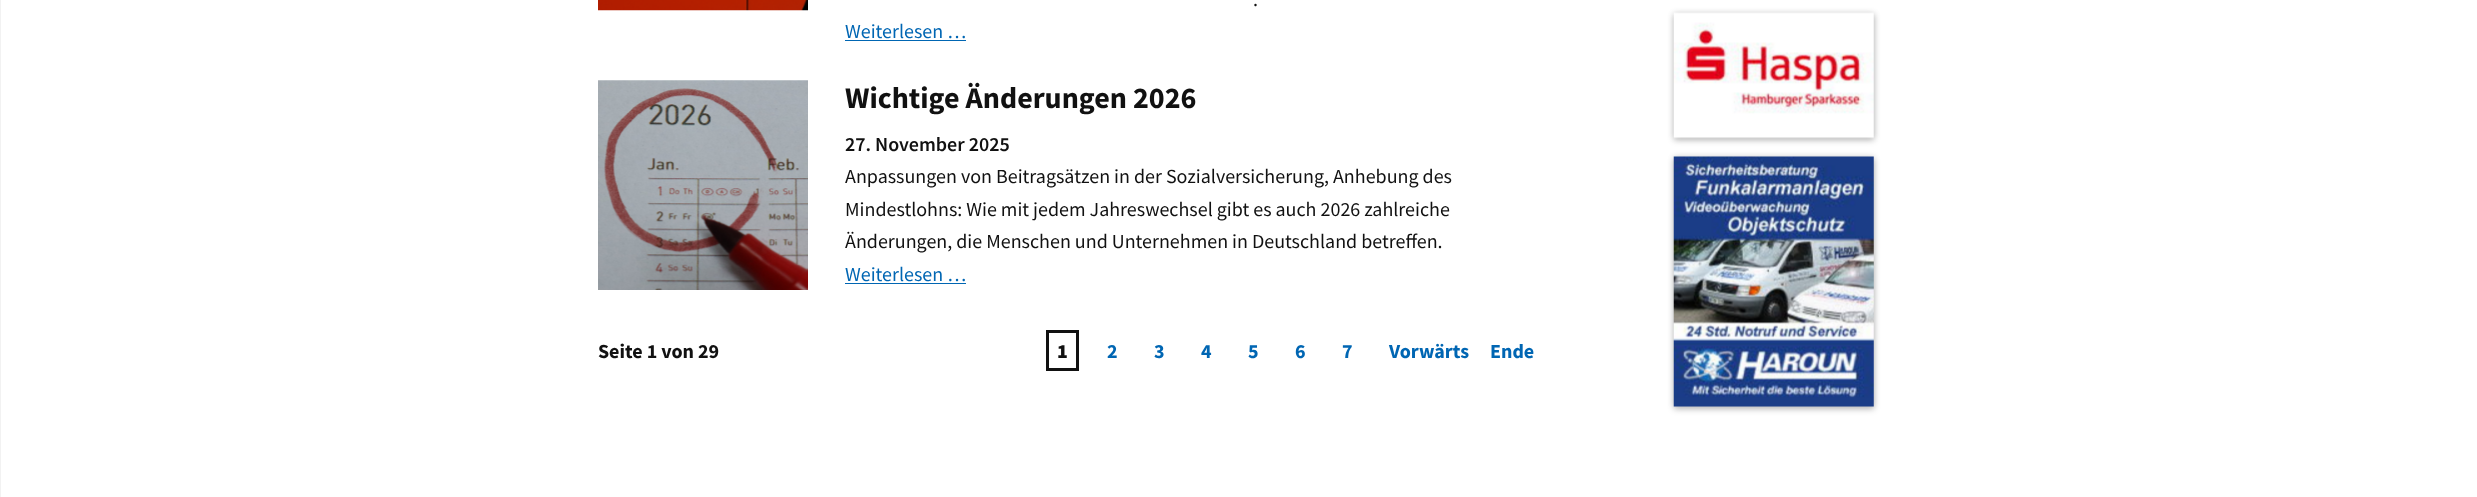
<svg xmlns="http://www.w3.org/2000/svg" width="2477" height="497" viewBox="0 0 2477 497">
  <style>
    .t1 { font: 20px Source Sans Pro; fill: #111; }
    .t2 { font: 20px Source Sans Pro; fill: #0066b3; }
    .t3 { font: bold 30px Source Sans Pro; fill: #111; }
    .t4 { font: 600 20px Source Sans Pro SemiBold; fill: #111; }
    .t5 { font: bold 20px Source Sans Pro; fill: #111; }
    .t6 { font: 900 20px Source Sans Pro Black; fill: #111; }
    .t7 { font: bold 20px Source Sans Pro; fill: #0066b3; }
  </style>
  <rect width="100%" height="100%" fill="#fff"/>
  <rect x="0" y="0" width="1" height="497" fill="#f2f2f2"/>
  <image x="598" y="0" width="210" height="11" href="images/1.png"/>
  <text x="1253" y="6" class="t1">.</text>
  <text x="845" y="38" class="t2">Weiterlesen …</text>
  <rect x="845" y="40" width="121" height="1" fill="#0066b3"/>
  <image x="598" y="80" width="210" height="210" href="images/2.png"/>
  <text x="845" y="108" class="t3">Wichtige Änderungen 2026</text>
  <text x="845" y="151" class="t4">27. November 2025</text>
  <text x="845" y="183" class="t1">Anpassungen von Beitragsätzen in der Sozialversicherung, Anhebung des</text>
  <text x="845" y="216" class="t1">Mindestlohns: Wie mit jedem Jahreswechsel gibt es auch 2026 zahlreiche</text>
  <text x="845" y="248" class="t1">Änderungen, die Menschen und Unternehmen in Deutschland betreffen.</text>
  <text x="845" y="281" class="t2">Weiterlesen …</text>
  <rect x="845" y="283" width="121" height="1" fill="#0066b3"/>
  <text x="598" y="358" class="t5">Seite 1 von 29</text>
  <rect x="1047.5" y="331.5" width="30" height="38" fill="none" stroke="#111" stroke-width="3"/>
  <text x="1057" y="358" class="t6">1</text>
  <text x="1107" y="358" class="t7">2</text>
  <text x="1154" y="358" class="t7">3</text>
  <text x="1201" y="358" class="t7">4</text>
  <text x="1248" y="358" class="t7">5</text>
  <text x="1295" y="358" class="t7">6</text>
  <text x="1342" y="358" class="t7">7</text>
  <text x="1389" y="358" class="t7">Vorwärts</text>
  <text x="1490" y="358" class="t7">Ende</text>
  <rect x="1674" y="15" width="200" height="125" fill="#00000040" filter="blur(3px)"/>
  <rect x="1674" y="13" width="200" height="125" fill="#0000001a" filter="blur(3px)"/>
  <image x="1673" y="12" width="201" height="127" href="images/3.png"/>
  <rect x="1674" y="159" width="200" height="250" fill="#00000040" filter="blur(3px)"/>
  <rect x="1674" y="156" width="200" height="250" fill="#0000001a" filter="blur(3px)"/>
  <image x="1673" y="156" width="201" height="251" href="images/4.png"/>
</svg>
